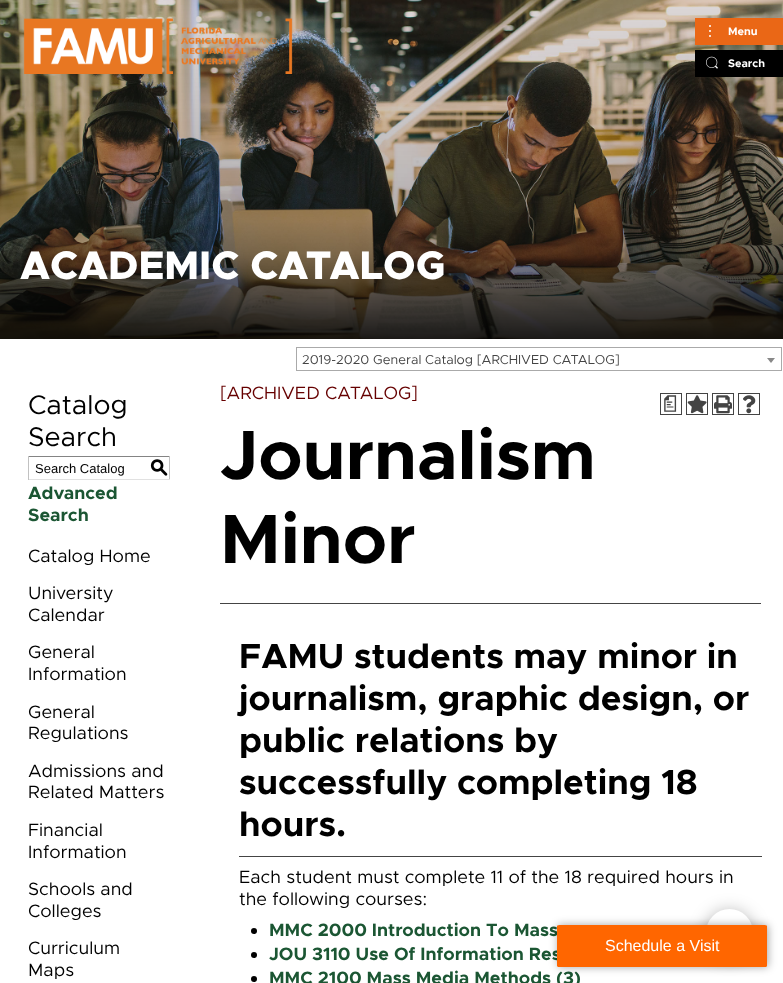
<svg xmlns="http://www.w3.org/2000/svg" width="783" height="983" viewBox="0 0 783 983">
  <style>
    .t1 { font: bold 11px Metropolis; fill: #fff; }
    .t2 { font: 800 40px Metropolis; fill: #fff; }
    .t3 { font: 13px Metropolis; fill: #444; }
    .t4 { font: 27px Metropolis; fill: #000; }
    .t5 { font: 13px Liberation Sans; fill: #000; }
    .t6 { font: 500 18px 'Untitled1'; fill: #000; }
    .t7 { font: bold 18px Metropolis; fill: #1b5633; }
    .t8 { font: 18px Metropolis; fill: #000; }
    .t9 { font: 18px Metropolis; fill: #600; }
    .t10 { font: 500 18px 'Untitled1'; fill: #444; }
    .t11 { font: bold 70px Metropolis; fill: #000; }
    .t12 { font: bold 35px Metropolis; fill: #000; }
    .t13 { font: 16px Liberation Sans; fill: #fff; }
  </style>
  <rect width="100%" height="100%" fill="#fff"/>
  <image x="0" y="0" width="783" height="339" href="images/3.png"/>
  <image x="23" y="18" width="270" height="56" href="images/1.png"/>
  <rect x="695" y="18" width="88" height="27" fill="#ea6716"/>
  <circle cx="710" cy="36" r="1" fill="#fff"/>
  <circle cx="710" cy="26" r="1" fill="#fff"/>
  <circle cx="710" cy="31" r="1" fill="#fff"/>
  <text x="728" y="35" class="t1">Menu</text>
  <rect x="695" y="50" width="88" height="27" fill="#000"/>
  <image x="706" y="56" width="12" height="13" href="images/2.png"/>
  <text x="728" y="67" class="t1">Search</text>
  <text x="20" y="279" class="t2">ACADEMIC CATALOG</text>
  <rect x="296.5" y="347.5" width="485" height="23" fill="none" stroke="#aaa"/>
  <text x="302" y="364" class="t3">2019-2020 General Catalog [ARCHIVED CATALOG]</text>
  <path d="M767 358H775L771 363Z" fill="#888"/>
  <text x="28" y="414" class="t4">Catalog</text>
  <text x="28" y="446" class="t4">Search</text>
  <rect x="28" y="456" width="142" height="1" fill="#848484"/>
  <rect x="169" y="456" width="1" height="24" fill="#c1c1c1"/>
  <rect x="28" y="479" width="142" height="1" fill="#e1e1e1"/>
  <rect x="28" y="456" width="1" height="24" fill="#c1c1c1"/>
  <text x="35" y="473" class="t5">Search Catalog</text>
  <text x="150" y="473" class="t6">S</text>
  <text x="28" y="499" class="t7">Advanced</text>
  <text x="28" y="521" class="t7">Search</text>
  <text x="28" y="562" class="t8">Catalog Home</text>
  <text x="28" y="599" class="t8">University</text>
  <text x="28" y="621" class="t8">Calendar</text>
  <text x="28" y="658" class="t8">General</text>
  <text x="28" y="680" class="t8">Information</text>
  <text x="28" y="718" class="t8">General</text>
  <text x="28" y="739" class="t8">Regulations</text>
  <text x="28" y="777" class="t8">Admissions and</text>
  <text x="28" y="798" class="t8">Related Matters</text>
  <text x="28" y="836" class="t8">Financial</text>
  <text x="28" y="858" class="t8">Information</text>
  <text x="28" y="895" class="t8">Schools and</text>
  <text x="28" y="917" class="t8">Colleges</text>
  <text x="28" y="954" class="t8">Curriculum</text>
  <text x="28" y="976" class="t8">Maps</text>
  <text x="220" y="399" class="t9">[ARCHIVED CATALOG]</text>
  <rect x="660.5" y="393.5" width="21" height="21" fill="none" stroke="#444"/>
  <text x="661" y="409" class="t10">a</text>
  <rect x="686.5" y="393.5" width="21" height="21" fill="none" stroke="#444"/>
  <image x="687" y="395" width="20" height="19" href="images/4.png"/>
  <rect x="712.5" y="393.5" width="21" height="21" fill="none" stroke="#444"/>
  <image x="714" y="395" width="18" height="19" href="images/5.png"/>
  <rect x="738.5" y="393.5" width="21" height="21" fill="none" stroke="#444"/>
  <image x="743" y="395" width="13" height="19" href="images/6.png"/>
  <text x="220" y="479" class="t11">Journalism</text>
  <text x="220" y="563" class="t11">Minor</text>
  <rect x="220" y="603" width="541" height="1" fill="#444"/>
  <text x="239" y="668" class="t12">FAMU students may minor in</text>
  <text x="239" y="710" class="t12">journalism, graphic design, or</text>
  <text x="239" y="752" class="t12">public relations by</text>
  <text x="239" y="794" class="t12">successfully completing 18</text>
  <text x="239" y="836" class="t12">hours.</text>
  <rect x="239" y="856" width="523" height="1" fill="#444"/>
  <text x="239" y="883" class="t8">Each student must complete 11 of the 18 required hours in</text>
  <text x="239" y="905" class="t8">the following courses:</text>
  <circle cx="254" cy="931" r="3" fill="#000"/>
  <text x="269" y="936" class="t7">MMC 2000 Introduction To Mass</text>
  <circle cx="254" cy="955" r="3" fill="#000"/>
  <text x="269" y="960" class="t7">JOU 3110 Use Of Information Res</text>
  <circle cx="254" cy="979" r="3" fill="#000"/>
  <text x="269" y="984" class="t7">MMC 2100 Mass Media Methods (3)</text>
  <rect x="706" y="911" width="47" height="47" rx="23.5" fill="#0000004d" filter="blur(8.5px)"/>
  <circle cx="729.5" cy="932.5" r="23.5" fill="#fff"/>
  <rect x="558" y="925" width="210" height="42" rx="1" fill="#00000059" filter="blur(4.5px)"/>
  <path d="M561 925H763C765 925 767 925 767 926V966C767 967 765 967 763 967H561C559 967 557 967 557 966V926C557 925 559 925 561 925Z" fill="#f60"/>
  <text x="605" y="951" class="t13">Schedule a Visit</text>
</svg>
